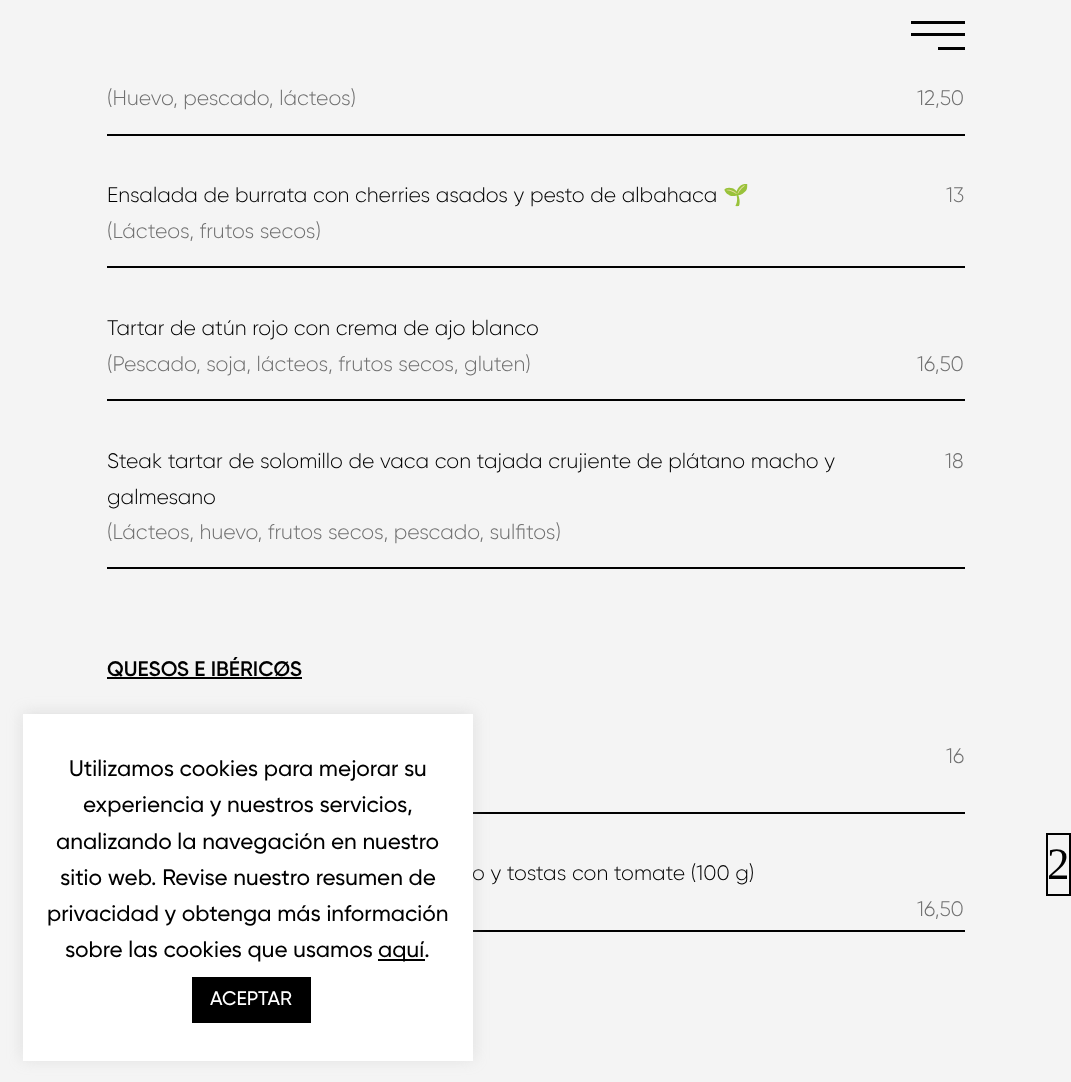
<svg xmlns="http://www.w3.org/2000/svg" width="1071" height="1082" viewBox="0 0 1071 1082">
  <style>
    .t1 { font: 300 21px Gilroy; fill: #707070; }
    .t2 { font: 300 21px Gilroy; fill: #000; }
    .t3 { font: 21px Noto Color Emoji; fill: #000; }
    .t4 { font: 600 21px Gilroy; fill: #000; }
    .t5 { font: 500 22.5px Gilroy; fill: #000; }
    .t6 { font: 500 19.5px Gilroy; fill: #fff; }
    .t7 { font: 45px Liberation Serif; fill: #000; }
  </style>
  <rect width="100%" height="100%" fill="#f4f4f4"/>
  <rect x="911" y="21" width="54" height="3" fill="#000"/>
  <rect x="911" y="33" width="54" height="3" fill="#000"/>
  <rect x="938" y="47" width="27" height="3" fill="#000"/>
  <rect x="107" y="134" width="858" height="2" fill="#000"/>
  <text x="107" y="105" class="t1">(Huevo, pescado, lácteos)</text>
  <text x="917" y="105" class="t1">12,50</text>
  <text x="107" y="202" class="t2">Ensalada de burrata con cherries asados y pesto de albahaca</text>
  <text x="723" y="202" class="t3">🌱</text>
  <text x="946" y="202" class="t1">13</text>
  <rect x="107" y="266" width="858" height="2" fill="#000"/>
  <text x="107" y="238" class="t1">(Lácteos, frutos secos)</text>
  <text x="107" y="335" class="t2">Tartar de atún rojo con crema de ajo blanco</text>
  <text x="917" y="371" class="t1">16,50</text>
  <rect x="107" y="399" width="858" height="2" fill="#000"/>
  <text x="107" y="371" class="t1">(Pescado, soja, lácteos, frutos secos, gluten)</text>
  <text x="107" y="468" class="t2">Steak tartar de solomillo de vaca con tajada crujiente de plátano macho y</text>
  <text x="107" y="504" class="t2">galmesano</text>
  <text x="945" y="468" class="t1">18</text>
  <rect x="107" y="567" width="858" height="2" fill="#000"/>
  <text x="107" y="539" class="t1">(Lácteos, huevo, frutos secos, pescado, sulfitos)</text>
  <text x="107" y="676" class="t4">QUESOS E IBÉRICØS</text>
  <rect x="107" y="677" width="195" height="2" fill="#000"/>
  <text x="946" y="763" class="t1">16</text>
  <rect x="473" y="812" width="492" height="2" fill="#000"/>
  <text x="472" y="880" class="t2">o y tostas con tomate (100 g)</text>
  <text x="917" y="916" class="t1">16,50</text>
  <rect x="473" y="930" width="492" height="2" fill="#000"/>
  <rect x="23" y="713" width="450" height="346" fill="#acabab4d" filter="blur(7.5px)"/>
  <rect x="23" y="714" width="450" height="347" fill="#fff"/>
  <text x="69" y="776" class="t5">Utilizamos cookies para mejorar su</text>
  <text x="83" y="812" class="t5">experiencia y nuestros servicios,</text>
  <text x="56" y="849" class="t5">analizando la navegación en nuestro</text>
  <text x="60" y="885" class="t5">sitio web. Revise nuestro resumen de</text>
  <text x="47" y="921" class="t5">privacidad y obtenga más información</text>
  <text x="65" y="957" class="t5">sobre las cookies que usamos</text>
  <rect x="378" y="959" width="47" height="2" fill="#000"/>
  <text x="378" y="957" class="t5">aquí.</text>
  <rect x="192" y="977" width="119" height="46" fill="#000"/>
  <text x="210" y="1005" class="t6">ACEPTAR</text>
  <rect x="1047" y="834" width="23" height="61" fill="none" stroke="#000" stroke-width="2"/>
  <text x="1047" y="879" class="t7">2</text>
</svg>
